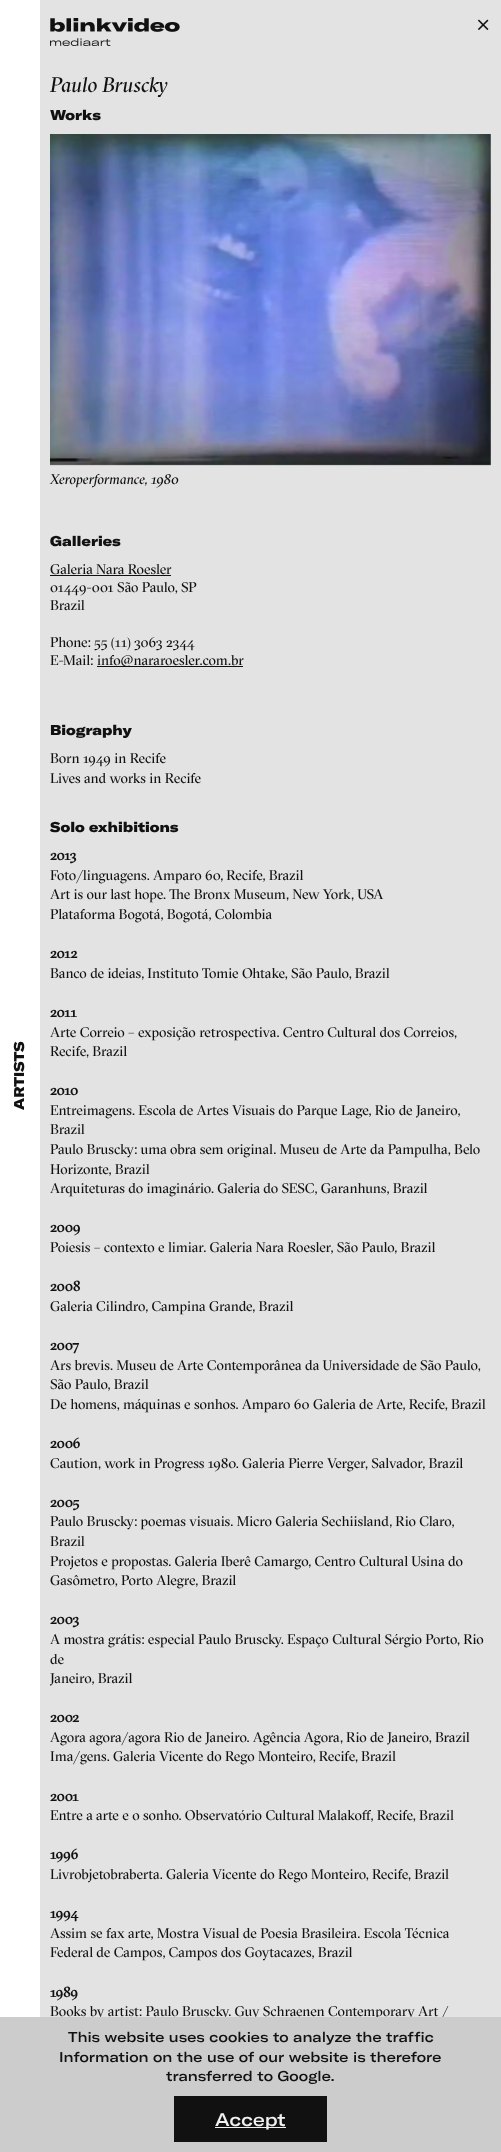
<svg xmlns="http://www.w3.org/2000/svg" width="501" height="2152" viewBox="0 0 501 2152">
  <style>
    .t1 { font: 900 14px GT America; fill: #111; }
    .t2 { font: italic 21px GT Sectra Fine; fill: #111; }
    .t3 { font: italic 14px GT Sectra Fine; fill: #111; }
    .t4 { font: 14px GT Sectra Fine; fill: #111; }
    .t5 { font: bold 14px GT Sectra Fine; fill: #111; }
    .t6 { font: 500 14px GT America; fill: #111; }
    .t7 { font: 500 18px GT America; fill: #f1f1f1; }
  </style>
  <rect width="100%" height="100%" fill="#fff"/>
  <text x="24" y="1110" transform="rotate(-90 24 1110)" class="t1">ARTISTS</text>
  <rect x="40" y="0" width="461" height="2017" fill="#e3e3e3"/>
  <image x="477" y="19" width="12" height="11" href="images/1.png"/>
  <image x="50" y="18" width="130" height="28" href="images/2.png"/>
  <text x="50" y="92" class="t2">Paulo Bruscky</text>
  <text x="50" y="120" class="t1">Works</text>
  <image x="50" y="134" width="441" height="332" href="images/3.png"/>
  <text x="50" y="484" class="t3">Xeroperformance, 1980</text>
  <text x="50" y="546" class="t1">Galleries</text>
  <text x="50" y="574" class="t4">Galeria Nara Roesler</text>
  <rect x="50" y="575" width="121" height="1" fill="#111"/>
  <text x="50" y="592" class="t4">01449-001 São Paulo, SP</text>
  <text x="50" y="610" class="t4">Brazil</text>
  <text x="50" y="647" class="t4">Phone: 55 (11) 3063 2344</text>
  <text x="50" y="665" class="t4">E-Mail:</text>
  <rect x="97" y="666" width="146" height="1" fill="#111"/>
  <text x="97" y="665" class="t4">info@nararoesler.com.br</text>
  <text x="50" y="735" class="t1">Biography</text>
  <text x="50" y="763" class="t4">Born 1949 in Recife</text>
  <text x="50" y="783" class="t4">Lives and works in Recife</text>
  <text x="50" y="832" class="t1">Solo exhibitions</text>
  <text x="50" y="860" class="t5">2013</text>
  <text x="50" y="880" class="t4">Foto/linguagens. Amparo 60, Recife, Brazil</text>
  <text x="50" y="899" class="t4">Art is our last hope. The Bronx Museum, New York, USA</text>
  <text x="50" y="919" class="t4">Plataforma Bogotá, Bogotá, Colombia</text>
  <text x="50" y="958" class="t5">2012</text>
  <text x="50" y="978" class="t4">Banco de ideias, Instituto Tomie Ohtake, São Paulo, Brazil</text>
  <text x="50" y="1017" class="t5">2011</text>
  <text x="50" y="1037" class="t4">Arte Correio – exposição retrospectiva. Centro Cultural dos Correios,</text>
  <text x="50" y="1056" class="t4">Recife, Brazil</text>
  <text x="50" y="1095" class="t5">2010</text>
  <text x="50" y="1115" class="t4">Entreimagens. Escola de Artes Visuais do Parque Lage, Rio de Janeiro,</text>
  <text x="50" y="1134" class="t4">Brazil</text>
  <text x="50" y="1154" class="t4">Paulo Bruscky: uma obra sem original. Museu de Arte da Pampulha, Belo</text>
  <text x="50" y="1174" class="t4">Horizonte, Brazil</text>
  <text x="50" y="1193" class="t4">Arquiteturas do imaginário. Galeria do SESC, Garanhuns, Brazil</text>
  <text x="50" y="1232" class="t5">2009</text>
  <text x="50" y="1252" class="t4">Poiesis – contexto e limiar. Galeria Nara Roesler, São Paulo, Brazil</text>
  <text x="50" y="1291" class="t5">2008</text>
  <text x="50" y="1311" class="t4">Galeria Cilindro, Campina Grande, Brazil</text>
  <text x="50" y="1350" class="t5">2007</text>
  <text x="50" y="1370" class="t4">Ars brevis. Museu de Arte Contemporânea da Universidade de São Paulo,</text>
  <text x="50" y="1389" class="t4">São Paulo, Brazil</text>
  <text x="50" y="1409" class="t4">De homens, máquinas e sonhos. Amparo 60 Galeria de Arte, Recife, Brazil</text>
  <text x="50" y="1448" class="t5">2006</text>
  <text x="50" y="1468" class="t4">Caution, work in Progress 1980. Galeria Pierre Verger, Salvador, Brazil</text>
  <text x="50" y="1507" class="t5">2005</text>
  <text x="50" y="1526" class="t4">Paulo Bruscky: poemas visuais. Micro Galeria Sechiisland, Rio Claro,</text>
  <text x="50" y="1546" class="t4">Brazil</text>
  <text x="50" y="1566" class="t4">Projetos e propostas. Galeria Iberê Camargo, Centro Cultural Usina do</text>
  <text x="50" y="1585" class="t4">Gasômetro, Porto Alegre, Brazil</text>
  <text x="50" y="1624" class="t5">2003</text>
  <text x="50" y="1644" class="t4">A mostra grátis: especial Paulo Bruscky. Espaço Cultural Sérgio Porto, Rio</text>
  <text x="50" y="1664" class="t4">de</text>
  <text x="50" y="1683" class="t4">Janeiro, Brazil</text>
  <text x="50" y="1722" class="t5">2002</text>
  <text x="50" y="1742" class="t4">Agora agora/agora Rio de Janeiro. Agência Agora, Rio de Janeiro, Brazil</text>
  <text x="50" y="1761" class="t4">Ima/gens. Galeria Vicente do Rego Monteiro, Recife, Brazil</text>
  <text x="50" y="1801" class="t5">2001</text>
  <text x="50" y="1820" class="t4">Entre a arte e o sonho. Observatório Cultural Malakoff, Recife, Brazil</text>
  <text x="50" y="1859" class="t5">1996</text>
  <text x="50" y="1879" class="t4">Livrobjetobraberta. Galeria Vicente do Rego Monteiro, Recife, Brazil</text>
  <text x="50" y="1918" class="t5">1994</text>
  <text x="50" y="1938" class="t4">Assim se fax arte, Mostra Visual de Poesia Brasileira. Escola Técnica</text>
  <text x="50" y="1957" class="t4">Federal de Campos, Campos dos Goytacazes, Brazil</text>
  <text x="50" y="1997" class="t5">1989</text>
  <text x="50" y="2016" class="t4">Books by artist: Paulo Bruscky. Guy Schraenen Contemporary Art /</text>
  <rect x="0" y="2017" width="501" height="135" fill="#ccc"/>
  <text x="68" y="2042" class="t6">This website uses cookies to analyze the traffic</text>
  <text x="59" y="2062" class="t6">Information on the use of our website is therefore</text>
  <text x="166" y="2081" class="t6">transferred to Google.</text>
  <rect x="174" y="2096" width="153" height="46" fill="#111"/>
  <rect x="215" y="2127" width="71" height="1" fill="#f1f1f1"/>
  <text x="215" y="2126" class="t7">Accept</text>
</svg>
